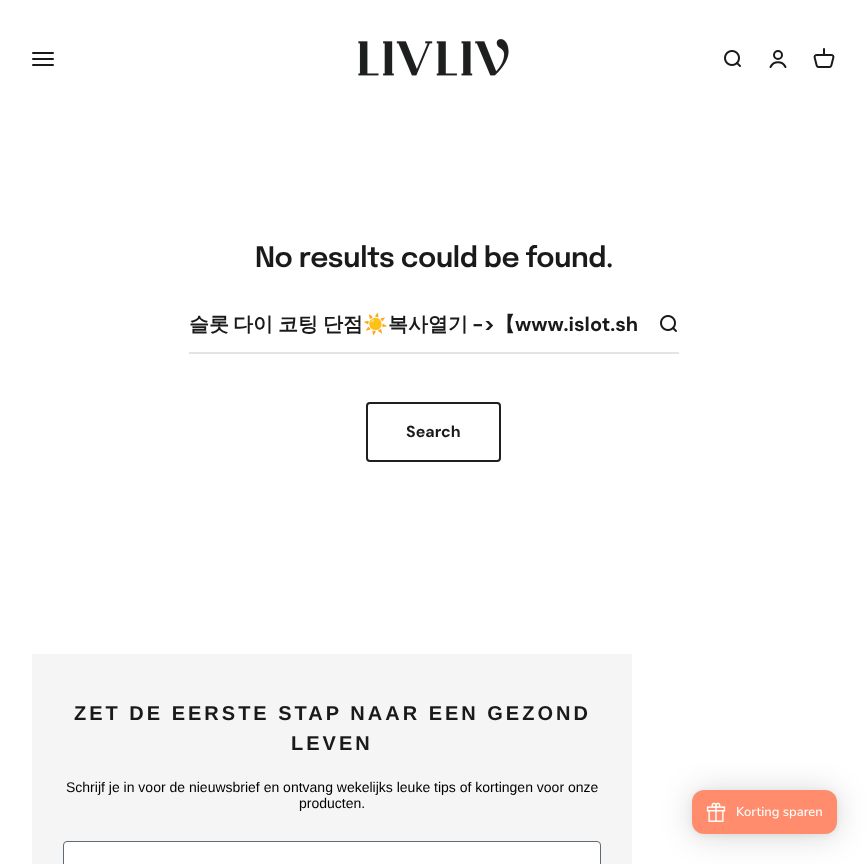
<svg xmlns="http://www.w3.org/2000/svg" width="867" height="864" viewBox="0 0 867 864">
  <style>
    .t1 { font: 600 28px Epilogue; letter-spacing: -0.55px; fill: #1a1a1a; }
    .t2 { font: bold 20px WenQuanYi Zen Hei; fill: #1a1a1a; }
    .t3 { font: bold 20px Noto Color Emoji; fill: #1a1a1a; }
    .t4 { font: bold 20px DM Sans; fill: #1a1a1a; }
    .t5 { font: bold 16px 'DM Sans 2'; fill: #1a1a1a; }
    .t6 { font: bold 20px Liberation Sans; letter-spacing: 3px; fill: #1a1a1a; }
    .t7 { font: 14px Liberation Sans; fill: #000; }
    .t8 { font: 500 13px Nunito; fill: #fff; }
  </style>
  <rect width="100%" height="100%" fill="#fff"/>
  <image x="32" y="52" width="22" height="14" href="images/1.png"/>
  <image x="358" y="39" width="151" height="37" href="images/2.png"/>
  <image x="724" y="50" width="17" height="17" href="images/3.png"/>
  <circle cx="778" cy="55" r="4" fill="none" stroke="#1a1a1a" stroke-width="2"/>
  <path d="M770.5 67C773.5 60.5 782.5 60.5 785.5 67" fill="none" stroke="#1a1a1a" stroke-width="2" stroke-linecap="round"/>
  <image x="813" y="48" width="22" height="20" href="images/4.png"/>
  <text x="255" y="267" class="t1">No results could be found.</text>
  <rect x="189" y="352" width="490" height="2" fill="#e4e4e4"/>
  <text x="189" y="331" class="t2">슬롯</text>
  <text x="233" y="331" class="t2">다이</text>
  <text x="278" y="331" class="t2">코팅</text>
  <text x="323" y="331" class="t2">단점</text>
  <text x="363" y="331" class="t3">☀️</text>
  <text x="388" y="331" class="t2">복사열기</text>
  <text x="472" y="331" class="t4">-&gt;</text>
  <text x="495" y="331" class="t2">【</text>
  <text x="515" y="331" class="t4">www.islot.sh</text>
  <image x="660" y="315" width="17" height="17" href="images/3.png"/>
  <rect x="367" y="403" width="133" height="58" rx="3" fill="none" stroke="#1f1f1f" stroke-width="2"/>
  <text x="406" y="437" class="t5">Search</text>
  <rect x="32" y="654" width="600" height="210" fill="#f5f5f5"/>
  <text x="74" y="720" class="t6">ZET DE EERSTE STAP NAAR EEN GEZOND</text>
  <text x="291" y="750" class="t6">LEVEN</text>
  <text x="66" y="792" class="t7">Schrijf je in voor de nieuwsbrief en ontvang wekelijks leuke tips of kortingen voor onze</text>
  <text x="299" y="808" class="t7">producten.</text>
  <rect x="63.5" y="841.5" width="537" height="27" rx="3.5" fill="#fff" stroke="#606a72"/>
  <rect x="692" y="792" width="145" height="44" rx="12" fill="#00000029" filter="blur(16px)"/>
  <rect x="692" y="791" width="145" height="44" rx="12" fill="#0000000f" filter="blur(3px)"/>
  <rect x="692" y="790" width="145" height="44" rx="12" fill="#ff8d6d"/>
  <image x="706" y="802" width="20" height="20" href="images/5.png"/>
  <text x="736" y="816" class="t8">Korting sparen</text>
</svg>
